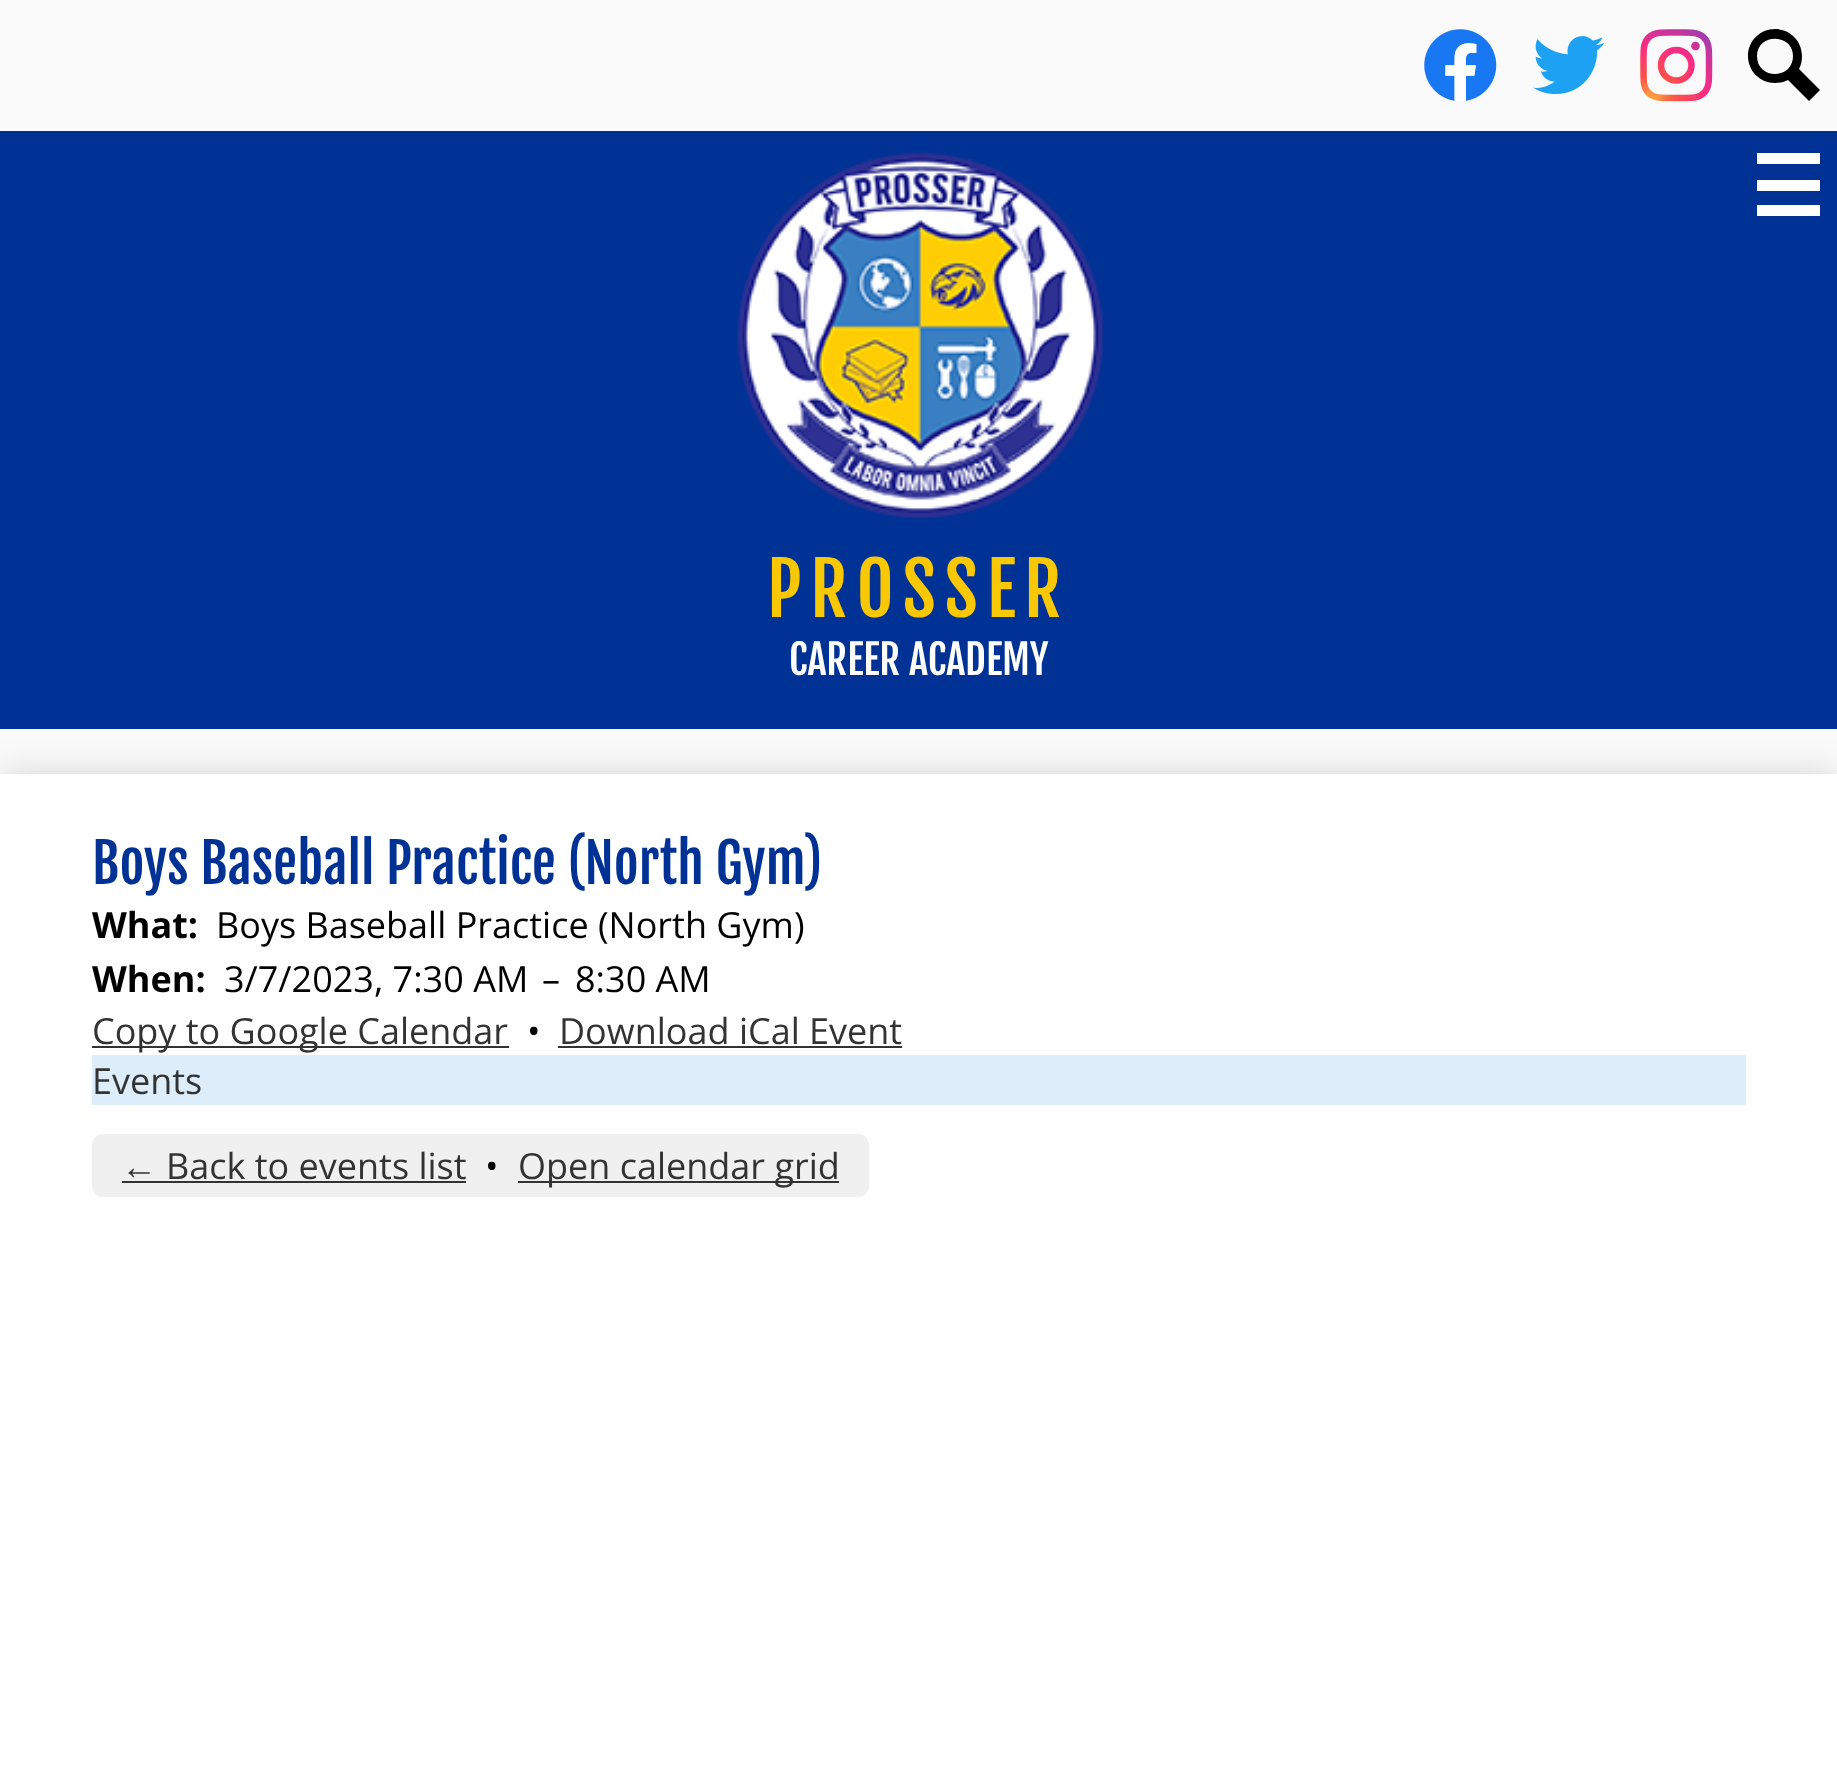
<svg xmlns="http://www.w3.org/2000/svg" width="1837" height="1781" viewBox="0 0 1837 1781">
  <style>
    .t1 { font: 72px Fjalla One; letter-spacing: 9px; fill: #fac800; }
    .t2 { font: 40.5px Fjalla One; fill: #fff; }
    .t3 { font: 54px Fjalla One; fill: #003296; }
    .t4 { font: bold 36px Open Sans; fill: #000; }
    .t5 { font: 36px Open Sans; fill: #000; }
    .t6 { font: 36px Open Sans; fill: #333; }
    .t7 { font: 36px Liberation Sans; fill: #333; }
  </style>
  <rect width="100%" height="100%" fill="#fafafa"/>
  <rect x="0" y="774" width="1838" height="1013" fill="#00000026" filter="blur(17px)"/>
  <rect x="0" y="131" width="1837" height="598" fill="#003296"/>
  <image x="1424" y="29" width="73" height="72" href="images/1.png"/>
  <image x="1533" y="36" width="71" height="59" href="images/2.png"/>
  <image x="1640" y="29" width="73" height="73" href="images/3.png"/>
  <path d="M1820 90L1799 69C1801 65 1802 61 1802 56C1802 41 1790 29 1775 29C1760 29 1748 41 1748 56C1748 71 1760 83 1775 83C1780 83 1784 82 1788 80L1809 101ZM1757 56C1757 33 1793 33 1793 56C1793 80 1757 80 1757 56Z" fill="#000"/>
  <rect x="1757" y="153" width="63" height="11" fill="#fff"/>
  <rect x="1757" y="180" width="63" height="11" fill="#fff"/>
  <rect x="1757" y="205" width="63" height="11" fill="#fff"/>
  <image x="737" y="152" width="366" height="366" href="images/4.png"/>
  <text x="767" y="617" class="t1">PROSSER</text>
  <text x="789" y="675" class="t2">CAREER ACADEMY</text>
  <rect x="0" y="774" width="1837" height="1007" fill="#fff"/>
  <text x="92" y="884" class="t3">Boys Baseball Practice (North Gym)</text>
  <text x="92" y="938" class="t4">What:</text>
  <text x="216" y="938" class="t5">Boys Baseball Practice (North Gym)</text>
  <text x="92" y="992" class="t4">When:</text>
  <text x="224" y="992" class="t5">3/7/2023, 7:30 AM</text>
  <text x="542" y="992" class="t5">–</text>
  <text x="575" y="992" class="t5">8:30 AM</text>
  <rect x="92" y="1046" width="417" height="2" fill="#333"/>
  <text x="92" y="1044" class="t6">Copy to Google Calendar</text>
  <text x="527" y="1044" class="t5">•</text>
  <text x="559" y="1044" class="t6">Download iCal Event</text>
  <rect x="558" y="1046" width="344" height="2" fill="#333"/>
  <rect x="92" y="1055" width="1654" height="50" fill="#ddeefa"/>
  <text x="92" y="1094" class="t6">Events</text>
  <rect x="92" y="1134" width="777" height="63" rx="11" fill="#f0f0f0"/>
  <text x="166" y="1179" class="t6">Back to events list</text>
  <text x="485" y="1179" class="t5">•</text>
  <rect x="518" y="1181" width="321" height="2" fill="#333"/>
  <text x="518" y="1179" class="t6">Open calendar grid</text>
  <text x="121" y="1179" class="t7">←</text>
  <rect x="122" y="1181" width="344" height="2" fill="#333"/>
</svg>
